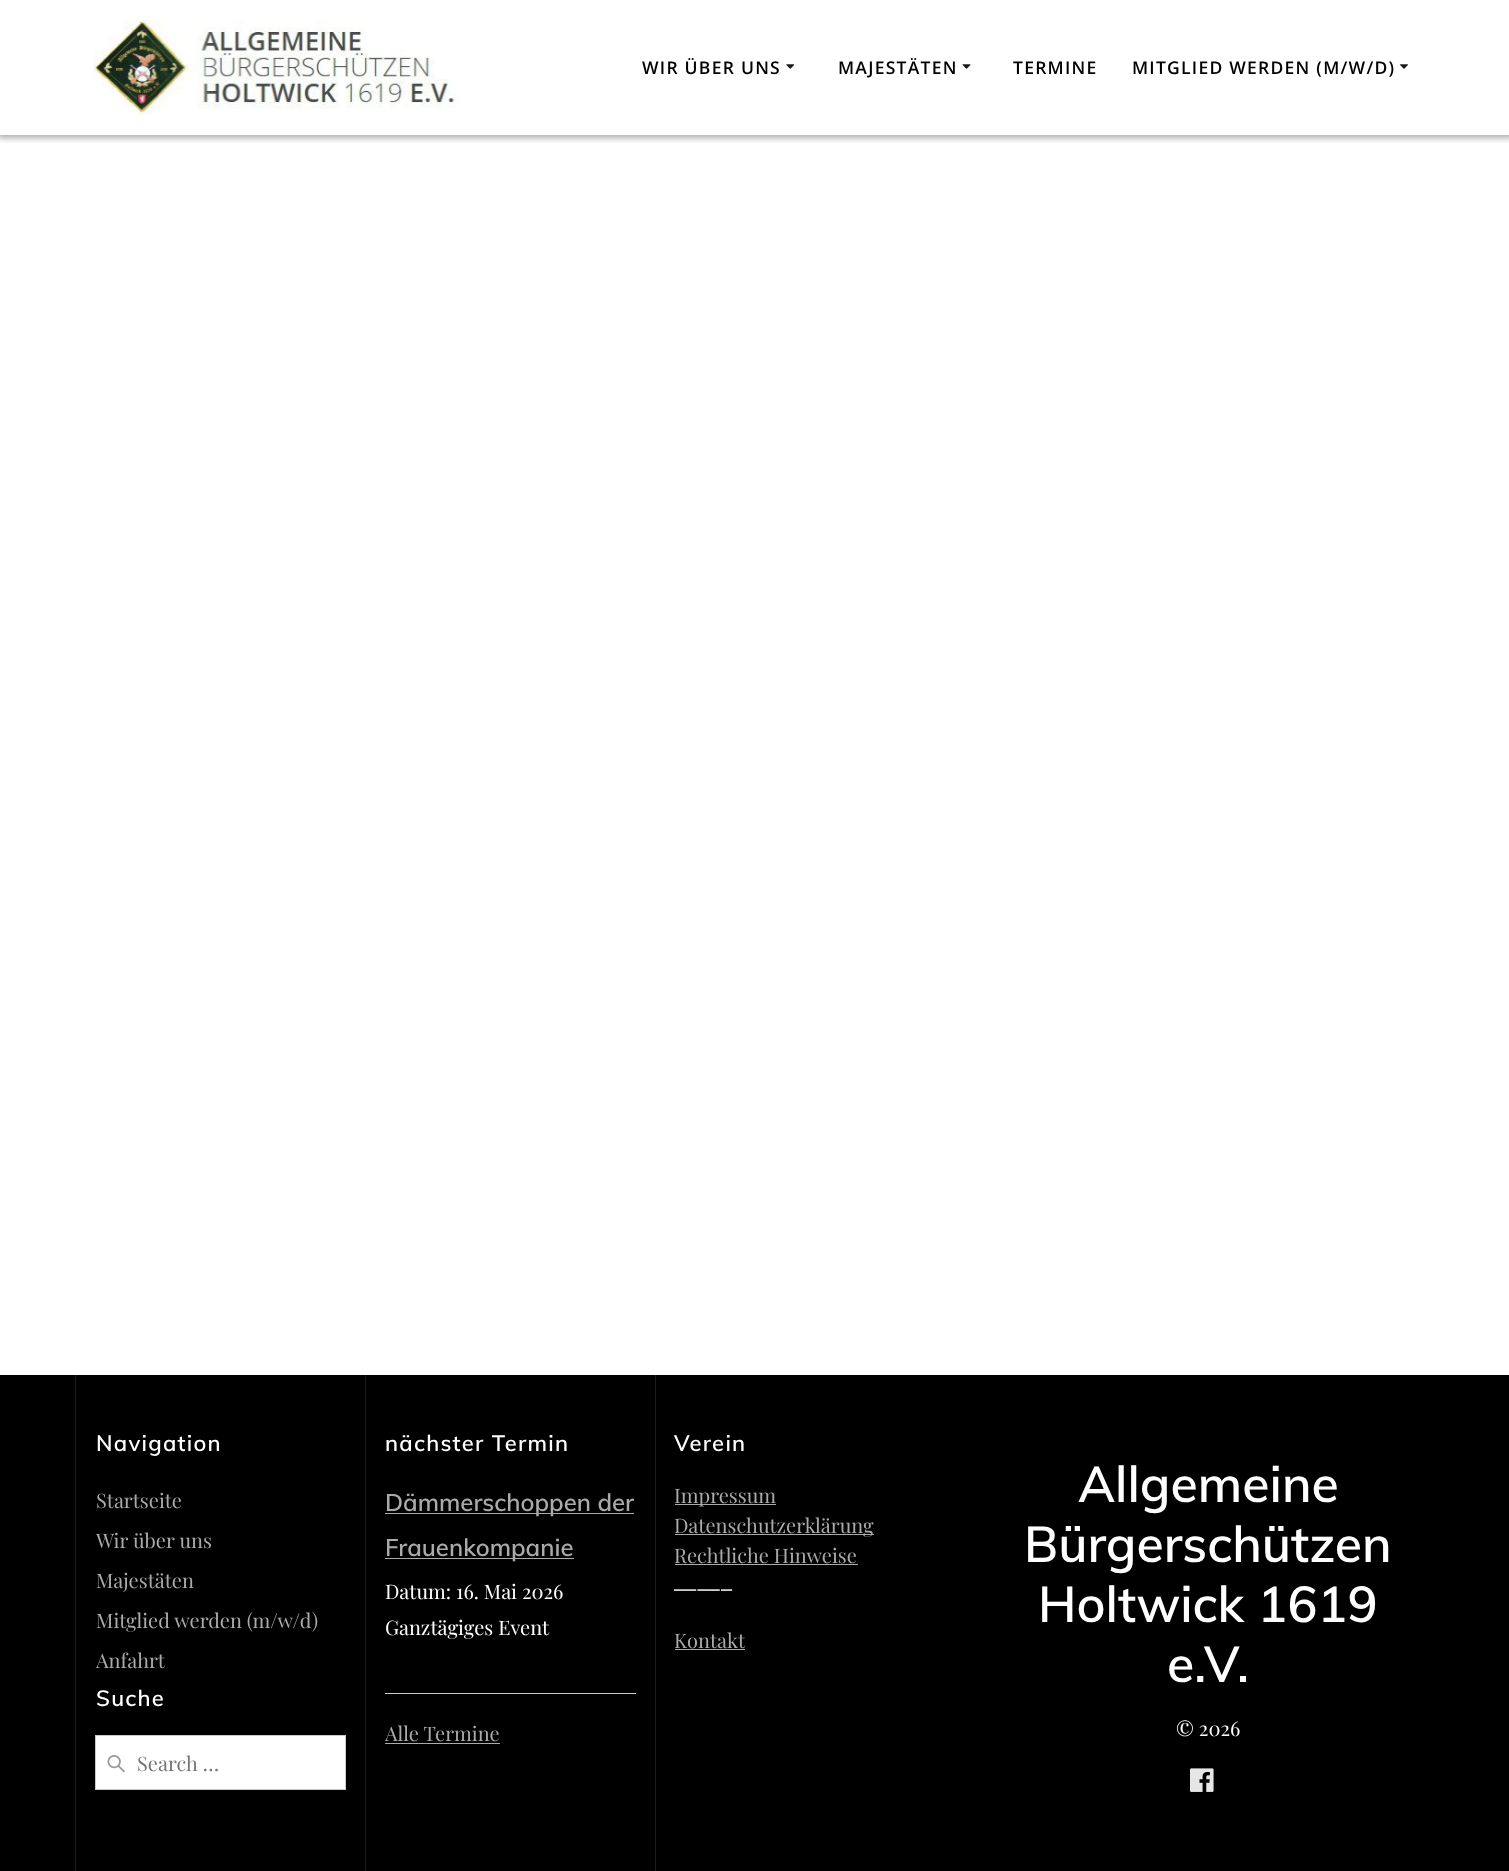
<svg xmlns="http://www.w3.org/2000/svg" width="1509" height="1871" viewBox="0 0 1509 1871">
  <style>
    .t1 { font: 600 17.5px Open Sans; letter-spacing: 1.25px; fill: #000; }
    .t2 { font: 600 22px Muli; letter-spacing: 1.25px; fill: #fff; }
    .t3 { font: 20px Playfair Display; fill: #aaa; }
    .t4 { font: 20px Playfair Display; fill: #757575; }
    .t5 { font: 600 24px Muli; fill: #aaa; }
    .t6 { font: 20px Playfair Display; fill: #fff; }
    .t7 { font: 600 50px Muli; fill: #fff; }
  </style>
  <defs>
    <clipPath id="clip1"><rect x="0" y="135" width="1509" height="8"/></clipPath>
  </defs>
  <rect width="100%" height="100%" fill="#000"/>
  <rect x="0" y="0" width="1509" height="1375" fill="#fff"/>
  <g clip-path="url(#clip1)">
    <rect x="-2" y="-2" width="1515" height="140" fill="#00000054" filter="blur(3px)"/>
  </g>
  <image x="93" y="20" width="364" height="95" href="images/1.png"/>
  <text x="642" y="74" class="t1">WIR ÜBER UNS</text>
  <image x="786" y="64" width="9" height="5" href="images/2.png"/>
  <text x="838" y="74" class="t1">MAJESTÄTEN</text>
  <image x="962" y="64" width="9" height="5" href="images/3.png"/>
  <text x="1013" y="74" class="t1">TERMINE</text>
  <text x="1132" y="74" class="t1">MITGLIED WERDEN (M/W/D)</text>
  <image x="1400" y="64" width="8" height="5" href="images/4.png"/>
  <rect x="75" y="1375" width="1" height="496" fill="#1a1a1a"/>
  <text x="96" y="1451" class="t2">Navigation</text>
  <text x="96" y="1508" class="t3">Startseite</text>
  <text x="96" y="1548" class="t3">Wir über uns</text>
  <text x="96" y="1588" class="t3">Majestäten</text>
  <text x="96" y="1628" class="t3">Mitglied werden (m/w/d)</text>
  <text x="96" y="1668" class="t3">Anfahrt</text>
  <text x="96" y="1706" class="t2">Suche</text>
  <rect x="96" y="1736" width="249" height="53" fill="#fff"/>
  <image x="107" y="1755" width="18" height="18" href="images/5.png"/>
  <rect x="95.5" y="1735.5" width="250" height="54" fill="none" stroke="#c4cdd5"/>
  <text x="137" y="1771" class="t4">Search …</text>
  <rect x="365" y="1375" width="1" height="496" fill="#1a1a1a"/>
  <text x="385" y="1451" class="t2">nächster Termin</text>
  <rect x="385" y="1693" width="251" height="1" fill="#ccc"/>
  <rect x="385" y="1513" width="249" height="1" fill="#aaa"/>
  <text x="385" y="1511" class="t5">Dämmerschoppen der</text>
  <rect x="385" y="1558" width="189" height="1" fill="#aaa"/>
  <text x="385" y="1556" class="t5">Frauenkompanie</text>
  <text x="385" y="1599" class="t6">Datum: 16. Mai 2026</text>
  <text x="385" y="1635" class="t6">Ganztägiges Event</text>
  <text x="385" y="1741" class="t3">Alle Termine</text>
  <rect x="385" y="1743" width="115" height="1" fill="#aaa"/>
  <rect x="655" y="1375" width="1" height="496" fill="#1a1a1a"/>
  <text x="674" y="1451" class="t2">Verein</text>
  <rect x="675" y="1504" width="101" height="1" fill="#aaa"/>
  <text x="674" y="1503" class="t3">Impressum</text>
  <rect x="675" y="1534" width="199" height="1" fill="#aaa"/>
  <text x="674" y="1533" class="t3">Datenschutzerklärung</text>
  <text x="674" y="1563" class="t3">Rechtliche Hinweise</text>
  <rect x="675" y="1564" width="183" height="1" fill="#aaa"/>
  <text x="674" y="1596" class="t2">——–</text>
  <text x="674" y="1648" class="t3">Kontakt</text>
  <rect x="675" y="1649" width="70" height="1" fill="#aaa"/>
  <text x="1078" y="1502" class="t7">Allgemeine</text>
  <text x="1024" y="1562" class="t7">Bürgerschützen</text>
  <text x="1038" y="1622" class="t7">Holtwick 1619</text>
  <text x="1167" y="1682" class="t7">e.V.</text>
  <text x="1176" y="1736" class="t6">© 2026</text>
  <image x="1190" y="1768" width="24" height="24" href="images/6.png"/>
</svg>
